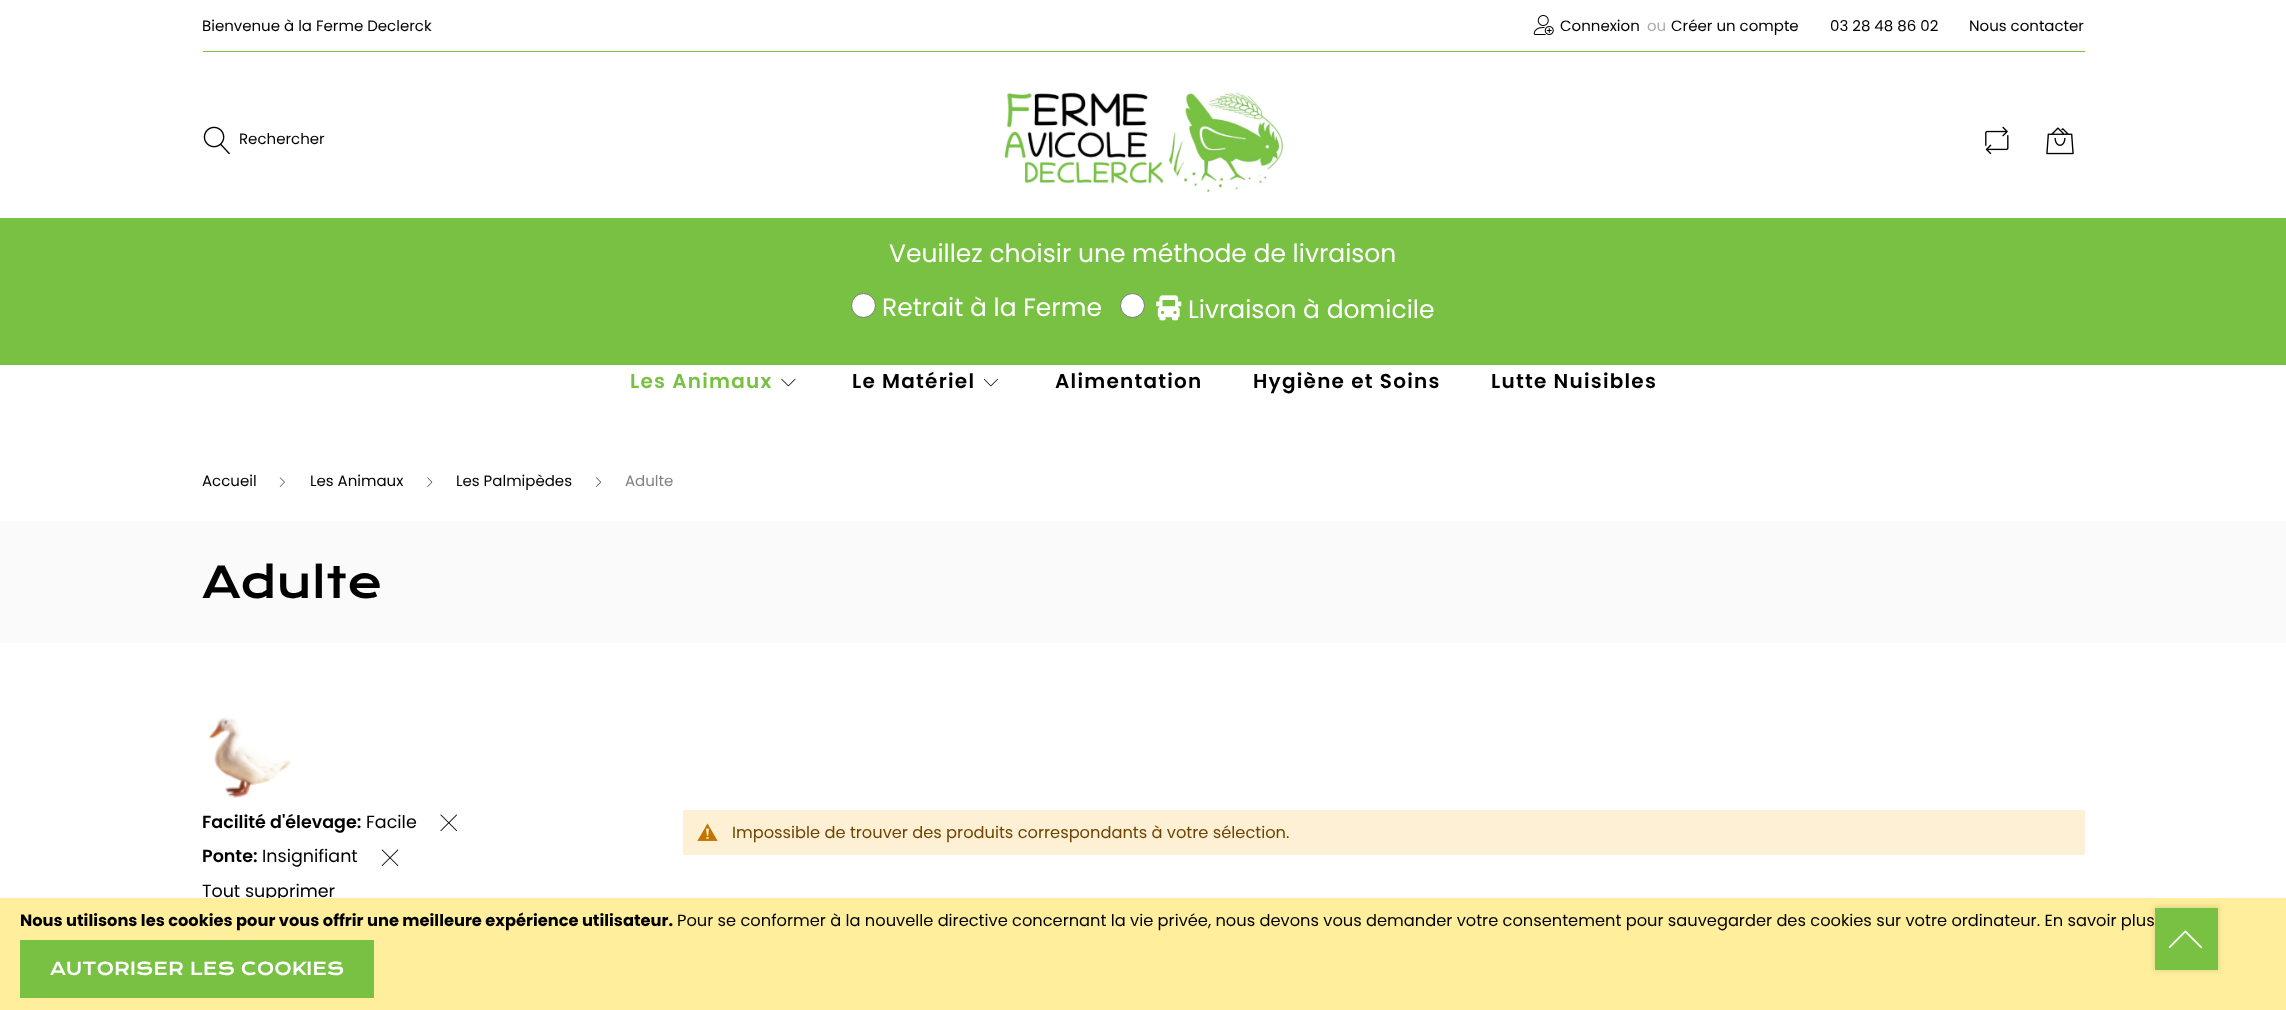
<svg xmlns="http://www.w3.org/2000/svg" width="2286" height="1010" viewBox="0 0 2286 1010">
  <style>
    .t1 { font: 15px Poppins; fill: #000; }
    .t2 { font: 15px Poppins; fill: #adadad; }
    .t3 { font: 25px Poppins; fill: #fff; }
    .t4 { font: 600 20px Poppins; letter-spacing: 1.25px; fill: #79c142; }
    .t5 { font: 600 20px Poppins; letter-spacing: 1.25px; fill: #000; }
    .t6 { font: 15px Poppins; fill: #828282; }
    .t7 { font: 42.5px Krona One; fill: #000; }
    .t8 { font: 600 17.5px Poppins; fill: #000; }
    .t9 { font: 17.5px Poppins; fill: #000; }
    .t10 { font: 16.25px Poppins; fill: #6f4400; }
    .t11 { font: bold 16.25px Poppins; fill: #000; }
    .t12 { font: 16.25px Poppins; fill: #000; }
    .t13 { font: 17.5px Krona One; fill: #fff; }
  </style>
  <rect width="100%" height="100%" fill="#fff"/>
  <rect x="203" y="51" width="1882" height="1" fill="#79c142"/>
  <text x="202" y="31" class="t1">Bienvenue à la Ferme Declerck</text>
  <image x="1533" y="15" width="21" height="20" href="images/1.png"/>
  <text x="1560" y="31" class="t1">Connexion</text>
  <text x="1647" y="31" class="t2">ou</text>
  <text x="1671" y="31" class="t1">Créer un compte</text>
  <text x="1830" y="31" class="t1">03 28 48 86 02</text>
  <text x="1969" y="31" class="t1">Nous contacter</text>
  <image x="203" y="126" width="27" height="29" href="images/2.png"/>
  <text x="239" y="144" class="t1">Rechercher</text>
  <image x="1004" y="92" width="280" height="100" href="images/3.png"/>
  <image x="1985" y="126" width="24" height="29" href="images/4.png"/>
  <image x="2046" y="127" width="28" height="28" href="images/5.png"/>
  <rect x="0" y="218" width="2286" height="147" fill="#79c142"/>
  <text x="889" y="262" class="t3">Veuillez choisir une méthode de livraison</text>
  <circle cx="863.5" cy="305.5" r="12" fill="#fff" stroke="#767676"/>
  <text x="882" y="316" class="t3">Retrait à la Ferme</text>
  <circle cx="1132.5" cy="305.5" r="12" fill="#fff" stroke="#767676"/>
  <image x="1156" y="295" width="26" height="26" href="images/6.png"/>
  <text x="1188" y="318" class="t3">Livraison à domicile</text>
  <text x="630" y="388" class="t4">Les Animaux</text>
  <image x="781" y="378" width="15" height="9" href="images/7.png"/>
  <text x="852" y="388" class="t5">Le Matériel</text>
  <image x="984" y="378" width="14" height="9" href="images/8.png"/>
  <text x="1055" y="388" class="t5">Alimentation</text>
  <text x="1253" y="388" class="t5">Hygiène et Soins</text>
  <text x="1491" y="388" class="t5">Lutte Nuisibles</text>
  <text x="202" y="486" class="t1">Accueil</text>
  <image x="279" y="477" width="6" height="10" href="images/9.png"/>
  <text x="310" y="486" class="t1">Les Animaux</text>
  <image x="427" y="477" width="6" height="10" href="images/10.png"/>
  <text x="456" y="486" class="t1">Les Palmipèdes</text>
  <image x="596" y="477" width="5" height="10" href="images/11.png"/>
  <text x="625" y="486" class="t6">Adulte</text>
  <rect x="0" y="521" width="2286" height="122" fill="#fafafa"/>
  <text x="202" y="598" class="t7">Adulte</text>
  <image x="208" y="717" width="84" height="81" href="images/12.png"/>
  <text x="202" y="828" class="t8">Facilité d'élevage:</text>
  <text x="366" y="828" class="t9">Facile</text>
  <image x="440" y="814" width="17" height="18" href="images/13.png"/>
  <text x="202" y="862" class="t8">Ponte:</text>
  <text x="262" y="862" class="t9">Insignifiant</text>
  <image x="381" y="849" width="18" height="18" href="images/14.png"/>
  <text x="202" y="897" class="t9">Tout supprimer</text>
  <rect x="683" y="810" width="1402" height="45" fill="#fdf0d5"/>
  <image x="697" y="823" width="21" height="18" href="images/15.png"/>
  <text x="732" y="838" class="t10">Impossible de trouver des produits correspondants à votre sélection.</text>
  <rect x="0" y="898" width="2286" height="112" fill="#ffee9c"/>
  <rect x="2154" y="906" width="65" height="65" fill="#0000001a" filter="blur(2.5px)"/>
  <rect x="2155" y="908" width="63" height="62" fill="#79c142"/>
  <image x="2169" y="930" width="33" height="18" href="images/16.png"/>
  <text x="20" y="926" class="t11">Nous utilisons les cookies pour vous offrir une meilleure expérience utilisateur.</text>
  <text x="677" y="926" class="t12">Pour se conformer à la nouvelle directive concernant la vie privée, nous devons vous demander votre consentement pour sauvegarder des cookies sur votre ordinateur. En savoir plus</text>
  <rect x="20" y="940" width="354" height="58" fill="#79c142"/>
  <text x="50" y="975" class="t13">AUTORISER LES COOKIES</text>
</svg>
